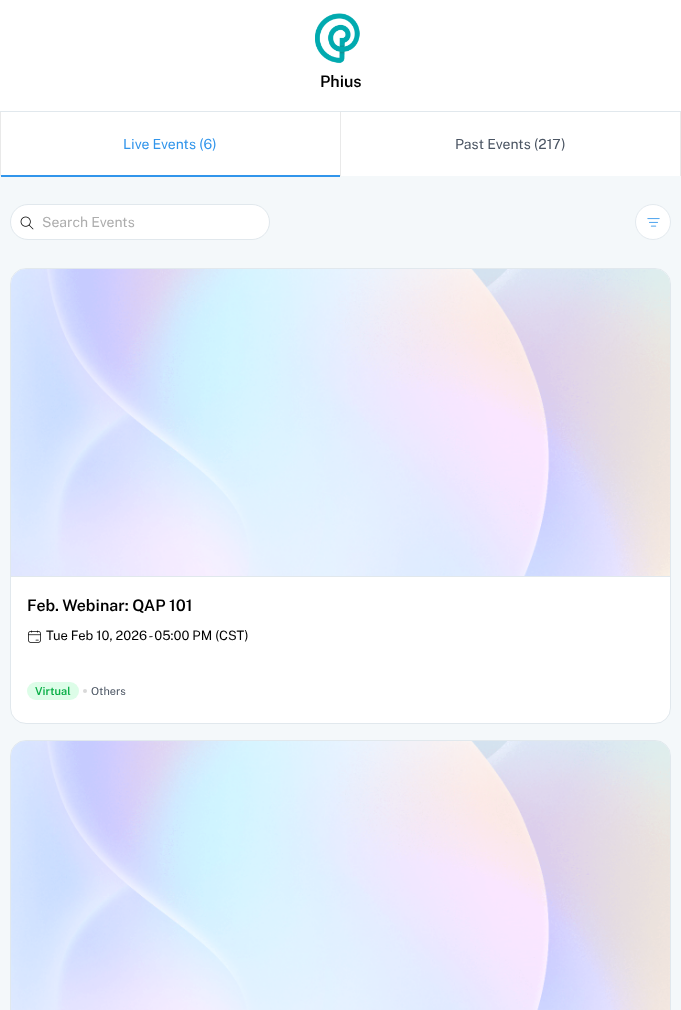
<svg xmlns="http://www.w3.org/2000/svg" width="681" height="1010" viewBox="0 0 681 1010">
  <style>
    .t1 { font: 600 16px Public Sans; fill: #000; }
    .t2 { font: 14px Public Sans; fill: #3195eb; }
    .t3 { font: 14px Public Sans; fill: #4b5563; }
    .t4 { font: 14px Public Sans; fill: #adadad; }
    .t5 { font: 13px Public Sans; fill: #000; }
    .t6 { font: 600 11px Public Sans; fill: #0aaf47; }
    .t7 { font: 11px Public Sans; fill: #4b5563; }
  </style>
  <rect width="100%" height="100%" fill="#f4f8fa"/>
  <rect x="0" y="0" width="681" height="111" fill="#fff"/>
  <rect x="0" y="111" width="681" height="1" fill="#e1e8ed"/>
  <image x="315" y="13" width="45" height="51" href="images/1.png"/>
  <text x="320" y="87" class="t1">Phius</text>
  <rect x="1" y="112" width="679" height="64" fill="#fff"/>
  <rect x="340" y="112" width="1" height="64" fill="#e9e9e9"/>
  <rect x="0" y="112" width="1" height="64" fill="#e9e9e9"/>
  <text x="123" y="149" class="t2">Live Events (6)</text>
  <rect x="1" y="175" width="339" height="2" fill="#3195eb"/>
  <rect x="680" y="112" width="1" height="64" fill="#e9e9e9"/>
  <text x="455" y="149" class="t3">Past Events (217)</text>
  <rect x="10.5" y="204.5" width="259" height="35" rx="17.5" fill="#fff" stroke="#e1e8ed"/>
  <image x="20" y="216" width="14" height="14" href="images/2.png"/>
  <text x="42" y="227" class="t4">Search Events</text>
  <circle cx="653" cy="222" r="17.5" fill="#fff" stroke="#e4eaef"/>
  <image x="647" y="218" width="13" height="9" href="images/3.png"/>
  <rect x="10.5" y="268.5" width="660" height="455" rx="15.5" fill="#fff" stroke="#e1e8ed"/>
  <rect x="11" y="576" width="659" height="1" fill="#e1e8ed"/>
  <image x="11" y="269" width="659" height="307" href="images/4.png"/>
  <text x="27" y="611" class="t1">Feb. Webinar: QAP 101</text>
  <image x="28" y="630" width="13" height="13" href="images/5.png"/>
  <text x="46" y="640" class="t5">Tue Feb 10, 2026 - 05:00 PM (CST)</text>
  <rect x="27" y="682" width="52" height="18" rx="9" fill="#ddfde8"/>
  <text x="35" y="695" class="t6">Virtual</text>
  <circle cx="85" cy="691" r="2" fill="#d9d9d9"/>
  <text x="91" y="695" class="t7">Others</text>
  <rect x="10.5" y="740.5" width="660" height="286" rx="15.5" fill="none" stroke="#e1e8ed"/>
  <image x="11" y="741" width="659" height="269" href="images/6.png"/>
</svg>
